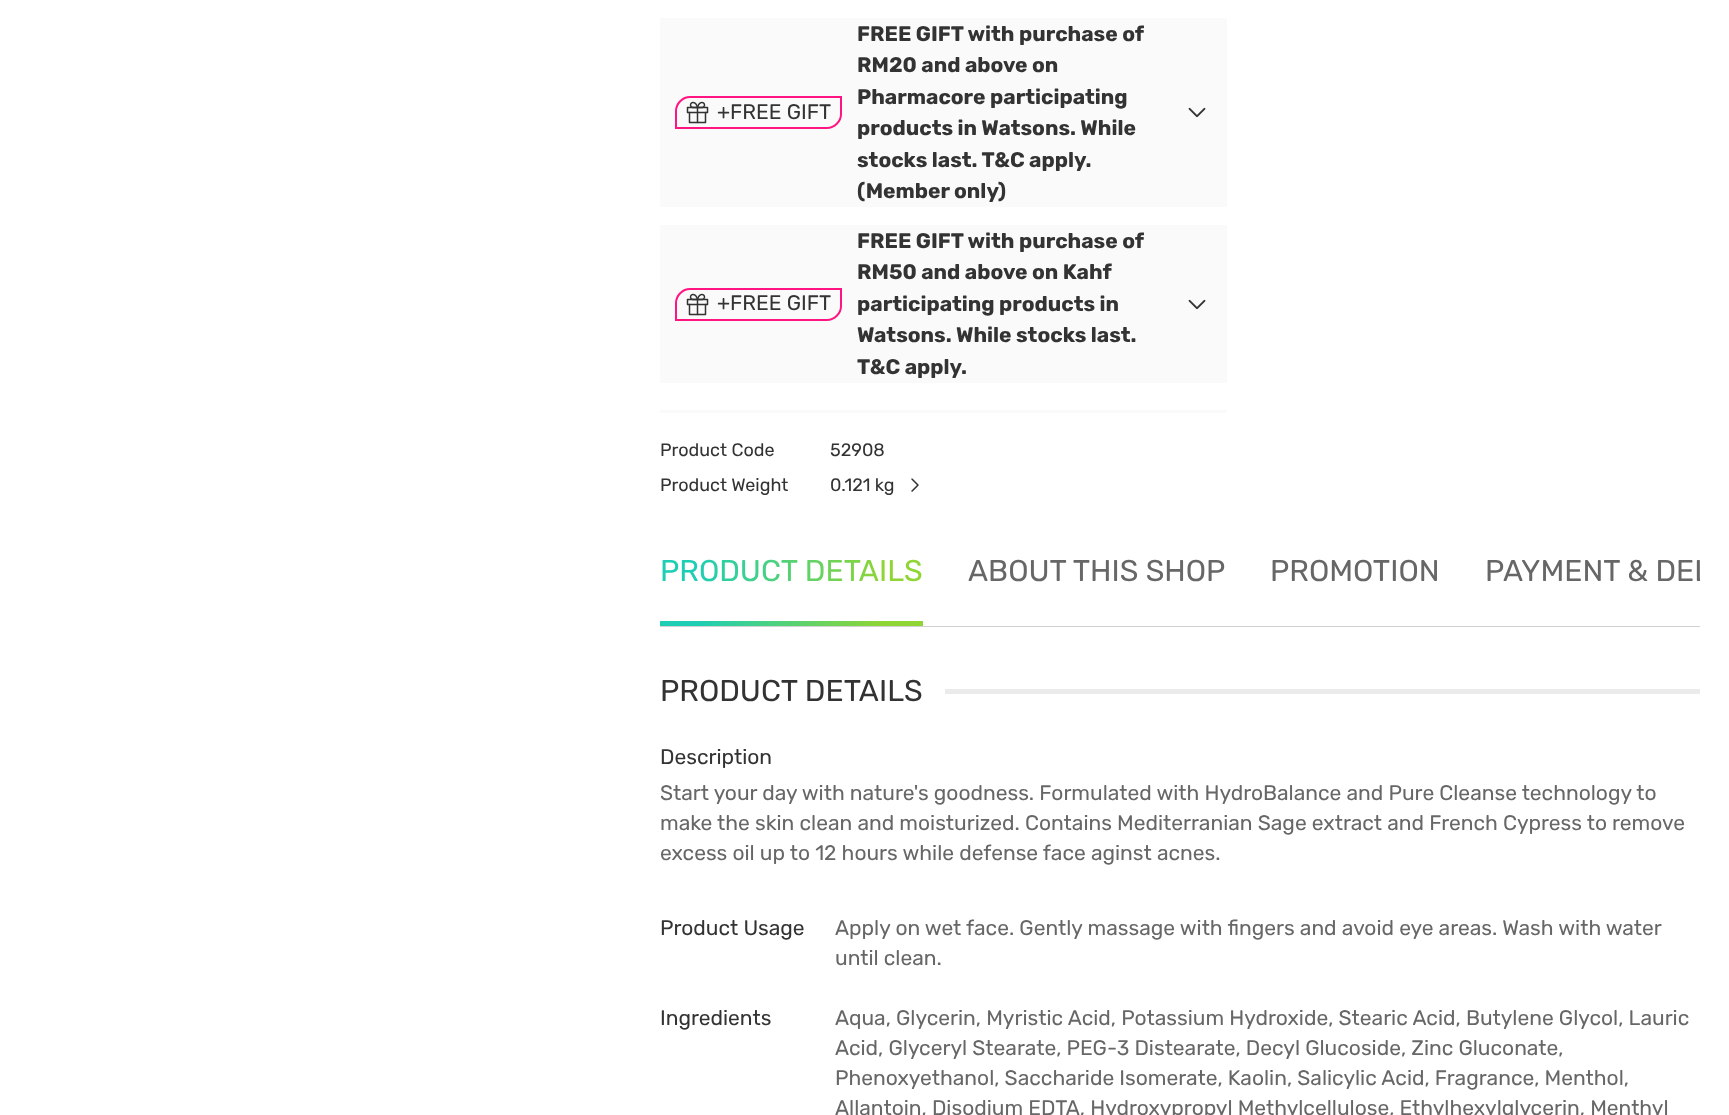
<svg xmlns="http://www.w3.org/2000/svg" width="1729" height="1115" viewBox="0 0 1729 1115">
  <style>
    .t1 { font: 21px Rubik; fill: #333; }
    .t2 { font: bold 21px Rubik; fill: #333; }
    .t3 { font: 18px Rubik; fill: #333; }
    .t4 { font: 30px Rubik; fill: url(#g1); }
    .t5 { font: 30px Rubik; fill: #676767; }
    .t6 { font: 30px Rubik; fill: #333; }
    .t7 { font: 21px Rubik; fill: #676767; }
  </style>
  <defs>
    <linearGradient id="g1" gradientUnits="userSpaceOnUse" x1="660" y1="561" x2="923" y2="581"><stop offset="0.14" stop-color="#1dceb4"/><stop offset="0.85" stop-color="#8fd534"/></linearGradient>
    <linearGradient id="g2" gradientUnits="userSpaceOnUse" x1="661" y1="614" x2="922" y2="634"><stop offset="0.14" stop-color="#1dceb4"/><stop offset="0.85" stop-color="#8fd534"/></linearGradient>
    <clipPath id="clip1"><rect x="660" y="521" width="1040" height="105"/></clipPath>
  </defs>
  <rect width="100%" height="100%" fill="#fff"/>
  <rect x="660" y="18" width="567" height="189" fill="#fafafa"/>
  <path d="M690 97H841V114C841 121.5 834.5 128 827 128H676V111C676 103.5 682.5 97 690 97Z" fill="none" stroke="#ff1481" stroke-width="2"/>
  <image x="686" y="101" width="23" height="23" href="images/1.png"/>
  <text x="717" y="119" class="t1">+FREE GIFT</text>
  <text x="857" y="41" class="t2">FREE GIFT with purchase of</text>
  <text x="857" y="72" class="t2">RM20 and above on</text>
  <text x="857" y="104" class="t2">Pharmacore participating</text>
  <text x="857" y="135" class="t2">products in Watsons. While</text>
  <text x="857" y="167" class="t2">stocks last. T&amp;C apply.</text>
  <text x="857" y="198" class="t2">(Member only)</text>
  <image x="1188" y="107" width="18" height="11" href="images/2.png"/>
  <rect x="660" y="225" width="567" height="158" fill="#fafafa"/>
  <path d="M690 289H841V306C841 313.5 834.5 320 827 320H676V303C676 295.5 682.5 289 690 289Z" fill="none" stroke="#ff1481" stroke-width="2"/>
  <image x="686" y="293" width="23" height="23" href="images/1.png"/>
  <text x="717" y="310" class="t1">+FREE GIFT</text>
  <text x="857" y="248" class="t2">FREE GIFT with purchase of</text>
  <text x="857" y="279" class="t2">RM50 and above on Kahf</text>
  <text x="857" y="311" class="t2">participating products in</text>
  <text x="857" y="342" class="t2">Watsons. While stocks last.</text>
  <text x="857" y="374" class="t2">T&amp;C apply.</text>
  <image x="1188" y="299" width="18" height="11" href="images/2.png"/>
  <rect x="660" y="410" width="567" height="3" fill="#fafafa"/>
  <text x="660" y="456" class="t3">Product Code</text>
  <text x="830" y="456" class="t3">52908</text>
  <text x="660" y="491" class="t3">Product Weight</text>
  <text x="830" y="491" class="t3">0.121 kg</text>
  <image x="911" y="478" width="8" height="14" href="images/3.png"/>
  <rect x="660" y="626" width="1040" height="1" fill="#d2d2d2"/>
  <text x="660" y="581" class="t4">PRODUCT DETAILS</text>
  <rect x="660" y="621" width="263" height="5" fill="url(#g2)"/>
  <text x="968" y="581" class="t5">ABOUT THIS SHOP</text>
  <text x="1270" y="581" class="t5">PROMOTION</text>
  <g clip-path="url(#clip1)">
    <text x="1485" y="581" class="t5">PAYMENT &amp; DEL</text>
  </g>
  <text x="660" y="701" class="t6">PRODUCT DETAILS</text>
  <rect x="945" y="689" width="755" height="5" fill="#ebebeb"/>
  <text x="660" y="764" class="t1">Description</text>
  <text x="660" y="800" class="t7">Start your day with nature's goodness. Formulated with HydroBalance and Pure Cleanse technology to</text>
  <text x="660" y="830" class="t7">make the skin clean and moisturized. Contains Mediterranian Sage extract and French Cypress to remove</text>
  <text x="660" y="860" class="t7">excess oil up to 12 hours while defense face aginst acnes.</text>
  <text x="660" y="935" class="t1">Product Usage</text>
  <text x="835" y="935" class="t7">Apply on wet face. Gently massage with fingers and avoid eye areas. Wash with water</text>
  <text x="835" y="965" class="t7">until clean.</text>
  <text x="660" y="1025" class="t1">Ingredients</text>
  <text x="835" y="1025" class="t7">Aqua, Glycerin, Myristic Acid, Potassium Hydroxide, Stearic Acid, Butylene Glycol, Lauric</text>
  <text x="835" y="1055" class="t7">Acid, Glyceryl Stearate, PEG-3 Distearate, Decyl Glucoside, Zinc Gluconate,</text>
  <text x="835" y="1085" class="t7">Phenoxyethanol, Saccharide Isomerate, Kaolin, Salicylic Acid, Fragrance, Menthol,</text>
  <text x="835" y="1115" class="t7">Allantoin, Disodium EDTA, Hydroxypropyl Methylcellulose, Ethylhexylglycerin, Menthyl</text>
</svg>
